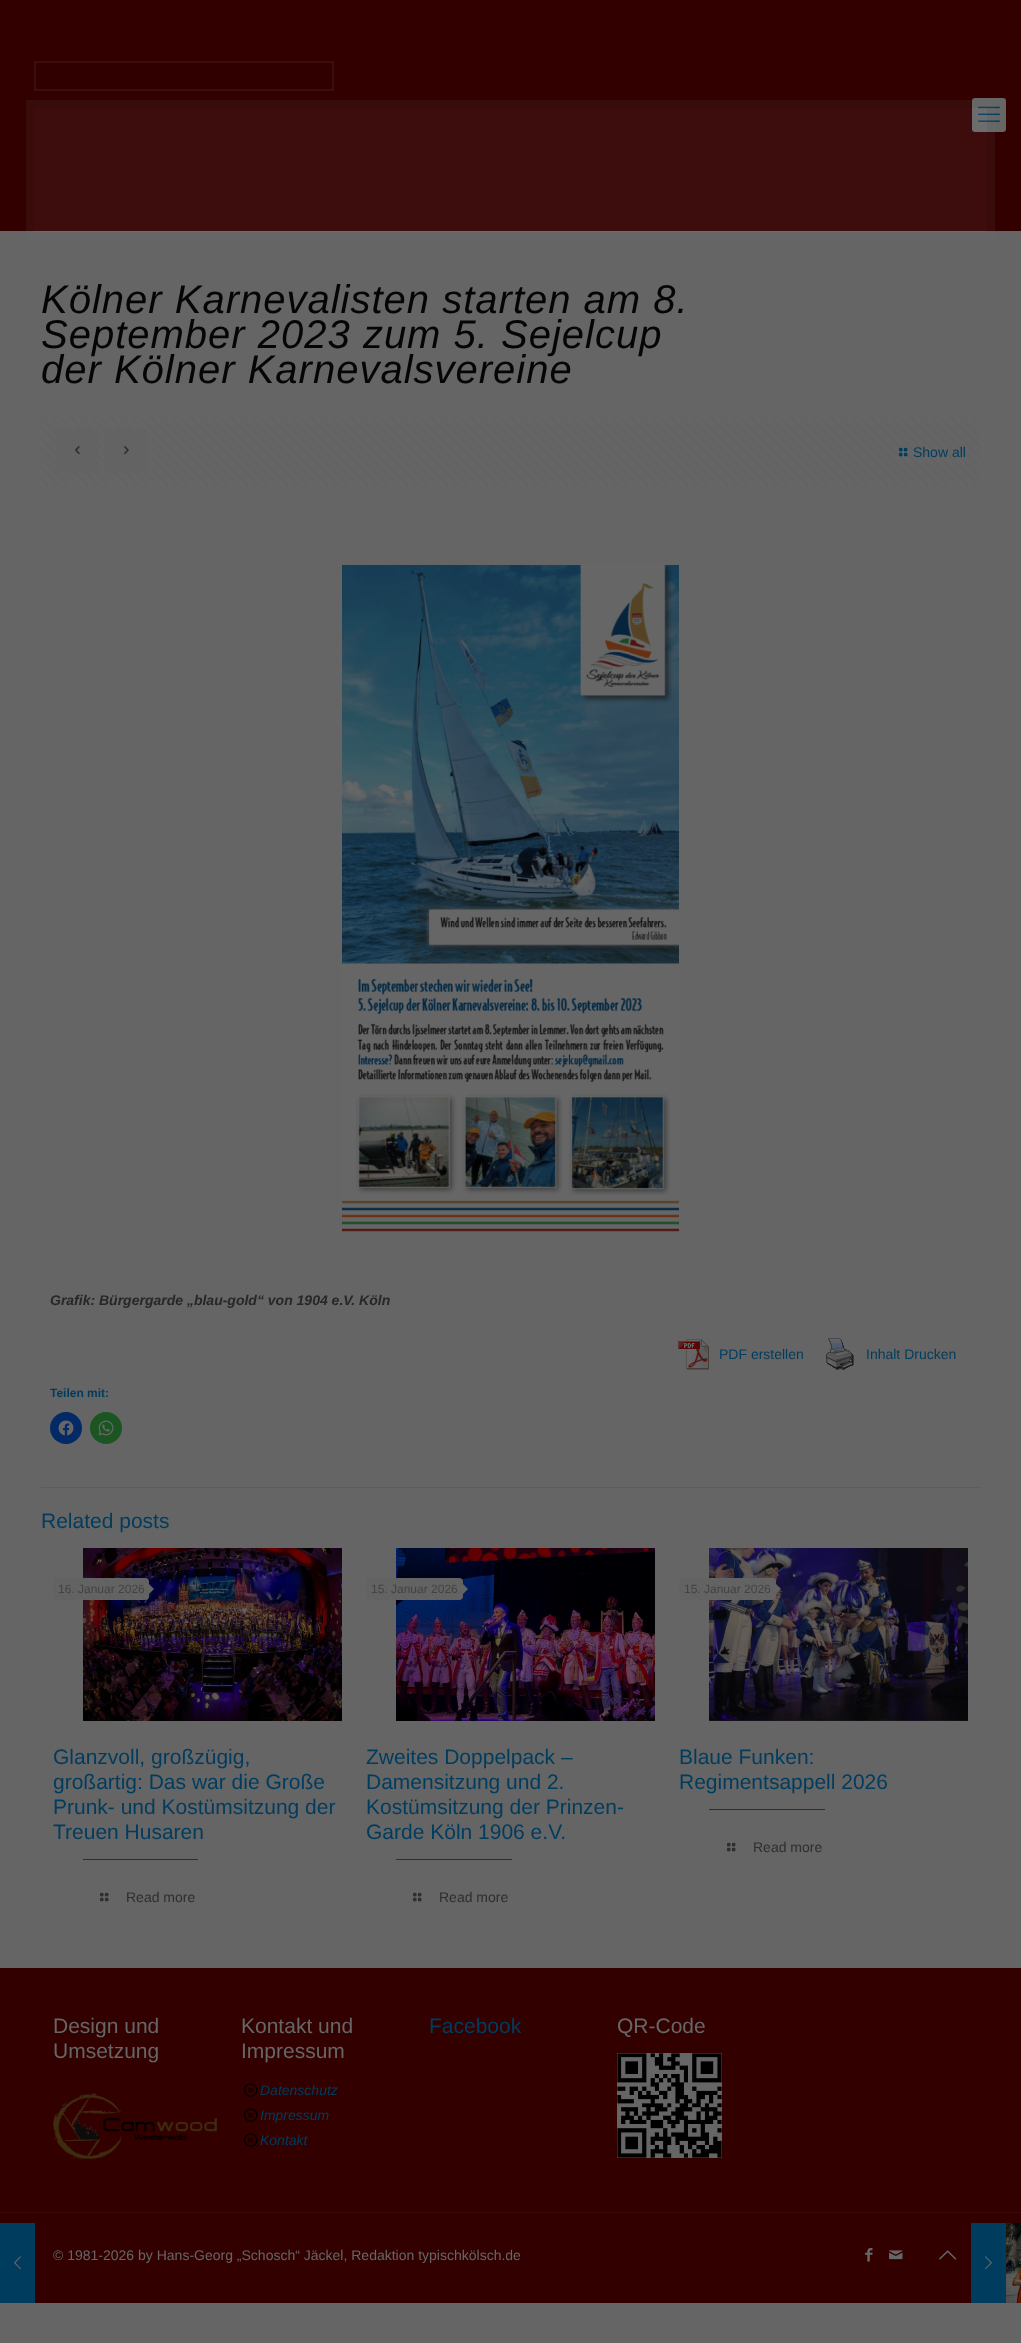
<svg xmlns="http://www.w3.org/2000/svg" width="1021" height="2343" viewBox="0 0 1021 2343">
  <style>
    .t1 { font: italic 40px Liberation Sans; letter-spacing: 1px; fill: #050505; }
    .t2 { font: 14px Liberation Sans; fill: #003c5e; }
    .t3 { font: italic bold 14px Liberation Sans; fill: #272727; }
    .t4 { font: bold 12px Liberation Sans; fill: #003c5e; }
    .t5 { font: 21px Liberation Sans; fill: #003c5e; }
    .t6 { font: 12px Liberation Sans; fill: #434343; }
    .t7 { font: 14px Liberation Sans; fill: #2e2e2e; }
    .t8 { font: 21px Liberation Sans; fill: #666; }
    .t9 { font: italic 14px Liberation Sans; fill: #003c5e; }
    .t10 { font: 14px Liberation Sans; fill: #666; }
  </style>
  <rect width="100%" height="100%" fill="#656565"/>
  <rect x="0" y="0" width="1021" height="231" fill="#300"/>
  <rect x="972" y="98" width="34" height="34" rx="3" fill="#666"/>
  <image x="978" y="106" width="22" height="16" href="images/2.png"/>
  <rect x="26" y="100" width="969" height="140" fill="#ffffff0d"/>
  <path d="M30 104H991V236H30Z" fill="none" stroke="#0000000d" stroke-width="8"/>
  <rect x="35" y="62" width="298" height="28" fill="#300000" stroke="#3d0d0d" stroke-width="2"/>
  <rect x="0" y="1968" width="1021" height="335" fill="#300"/>
  <rect x="0" y="2223" width="35" height="80" fill="#003c5e"/>
  <image x="14" y="2256" width="7" height="14" href="images/1.png"/>
  <text x="41" y="313" class="t1">Kölner Karnevalisten starten am 8.</text>
  <text x="41" y="348" class="t1">September 2023 zum 5. Sejelcup</text>
  <text x="41" y="383" class="t1">der Kölner Karnevalsvereine</text>
  <image x="41" y="418" width="940" height="67" href="images/3.png"/>
  <rect x="56" y="428" width="43" height="45" fill="#636363"/>
  <image x="75" y="446" width="5" height="9" href="images/4.png"/>
  <rect x="104" y="428" width="44" height="45" fill="#636363"/>
  <image x="124" y="446" width="5" height="9" href="images/5.png"/>
  <image x="899" y="447" width="9" height="10" href="images/6.png"/>
  <text x="913" y="457" class="t2">Show all</text>
  <image x="342" y="565" width="337" height="667" href="images/7.png"/>
  <text x="50" y="1305" class="t3">Grafik: Bürgergarde „blau-gold“ von 1904 e.V. Köln</text>
  <image x="678" y="1339" width="31" height="31" href="images/8.png"/>
  <text x="719" y="1359" class="t2">PDF erstellen</text>
  <image x="826" y="1338" width="28" height="32" href="images/9.png"/>
  <text x="866" y="1359" class="t2">Inhalt Drucken</text>
  <text x="50" y="1397" class="t4">Teilen mit:</text>
  <circle cx="66" cy="1428" r="16" fill="#032966"/>
  <image x="58" y="1420" width="16" height="16" href="images/10.png"/>
  <circle cx="106" cy="1428" r="16" fill="#1b5622"/>
  <image x="98" y="1420" width="16" height="16" href="images/11.png"/>
  <rect x="41" y="1487" width="940" height="1" fill="#5d5d5d"/>
  <text x="41" y="1528" class="t5">Related posts</text>
  <image x="83" y="1548" width="259" height="173" href="images/12.png"/>
  <rect x="53" y="1578" width="96" height="22" rx="4" fill="#636363"/>
  <image x="53" y="1578" width="96" height="22" href="images/13.png"/>
  <text x="58" y="1593" class="t6">16. Januar 2026</text>
  <path d="M149 1594V1584L154 1589Z" fill="#636363"/>
  <text x="53" y="1764" class="t5">Glanzvoll, großzügig,</text>
  <text x="53" y="1789" class="t5">großartig: Das war die Große</text>
  <text x="53" y="1814" class="t5">Prunk- und Kostümsitzung der</text>
  <text x="53" y="1839" class="t5">Treuen Husaren</text>
  <rect x="83" y="1859" width="115" height="1" fill="#003c5e"/>
  <image x="100" y="1892" width="9" height="10" href="images/14.png"/>
  <text x="126" y="1902" class="t7">Read more</text>
  <image x="396" y="1548" width="259" height="173" href="images/15.png"/>
  <rect x="366" y="1578" width="97" height="22" rx="4" fill="#636363"/>
  <image x="366" y="1578" width="97" height="22" href="images/16.png"/>
  <text x="371" y="1593" class="t6">15. Januar 2026</text>
  <path d="M463 1594V1584L468 1589Z" fill="#636363"/>
  <text x="366" y="1764" class="t5">Zweites Doppelpack –</text>
  <text x="366" y="1789" class="t5">Damensitzung und 2.</text>
  <text x="366" y="1814" class="t5">Kostümsitzung der Prinzen-</text>
  <text x="366" y="1839" class="t5">Garde Köln 1906 e.V.</text>
  <rect x="396" y="1859" width="116" height="1" fill="#003c5e"/>
  <image x="413" y="1892" width="9" height="10" href="images/14.png"/>
  <text x="439" y="1902" class="t7">Read more</text>
  <image x="709" y="1548" width="259" height="173" href="images/17.png"/>
  <rect x="679" y="1578" width="97" height="22" rx="4" fill="#636363"/>
  <image x="679" y="1578" width="97" height="22" href="images/18.png"/>
  <text x="684" y="1593" class="t6">15. Januar 2026</text>
  <path d="M776 1594V1584L781 1589Z" fill="#636363"/>
  <text x="679" y="1764" class="t5">Blaue Funken:</text>
  <text x="679" y="1789" class="t5">Regimentsappell 2026</text>
  <rect x="709" y="1809" width="116" height="1" fill="#003c5e"/>
  <image x="727" y="1842" width="9" height="10" href="images/14.png"/>
  <text x="753" y="1852" class="t7">Read more</text>
  <text x="53" y="2033" class="t8">Design und</text>
  <text x="53" y="2058" class="t8">Umsetzung</text>
  <image x="53" y="2093" width="164" height="66" href="images/19.png"/>
  <text x="241" y="2033" class="t8">Kontakt und</text>
  <text x="241" y="2058" class="t8">Impressum</text>
  <image x="244" y="2083" width="14" height="14" href="images/20.png"/>
  <text x="260" y="2095" class="t9">Datenschutz</text>
  <image x="244" y="2108" width="14" height="14" href="images/20.png"/>
  <text x="260" y="2120" class="t9">Impressum</text>
  <image x="244" y="2133" width="14" height="14" href="images/20.png"/>
  <text x="260" y="2145" class="t9">Kontakt</text>
  <text x="429" y="2033" class="t5">Facebook</text>
  <text x="617" y="2033" class="t8">QR-Code</text>
  <image x="617" y="2053" width="105" height="105" href="images/21.png"/>
  <rect x="0" y="2212" width="1021" height="1" fill="#380a0a"/>
  <text x="53" y="2260" class="t10">© 1981-2026 by Hans-Georg „Schosch“ Jäckel, Redaktion typischkölsch.de</text>
  <image x="865" y="2248" width="8" height="14" href="images/22.png"/>
  <image x="889" y="2250" width="14" height="10" href="images/23.png"/>
  <image x="939" y="2250" width="18" height="10" href="images/24.png"/>
  <rect x="971" y="2223" width="35" height="80" fill="#003c5e"/>
  <image x="985" y="2256" width="7" height="14" href="images/25.png"/>
  <image x="1006" y="2223" width="15" height="80" href="images/26.png"/>
</svg>
